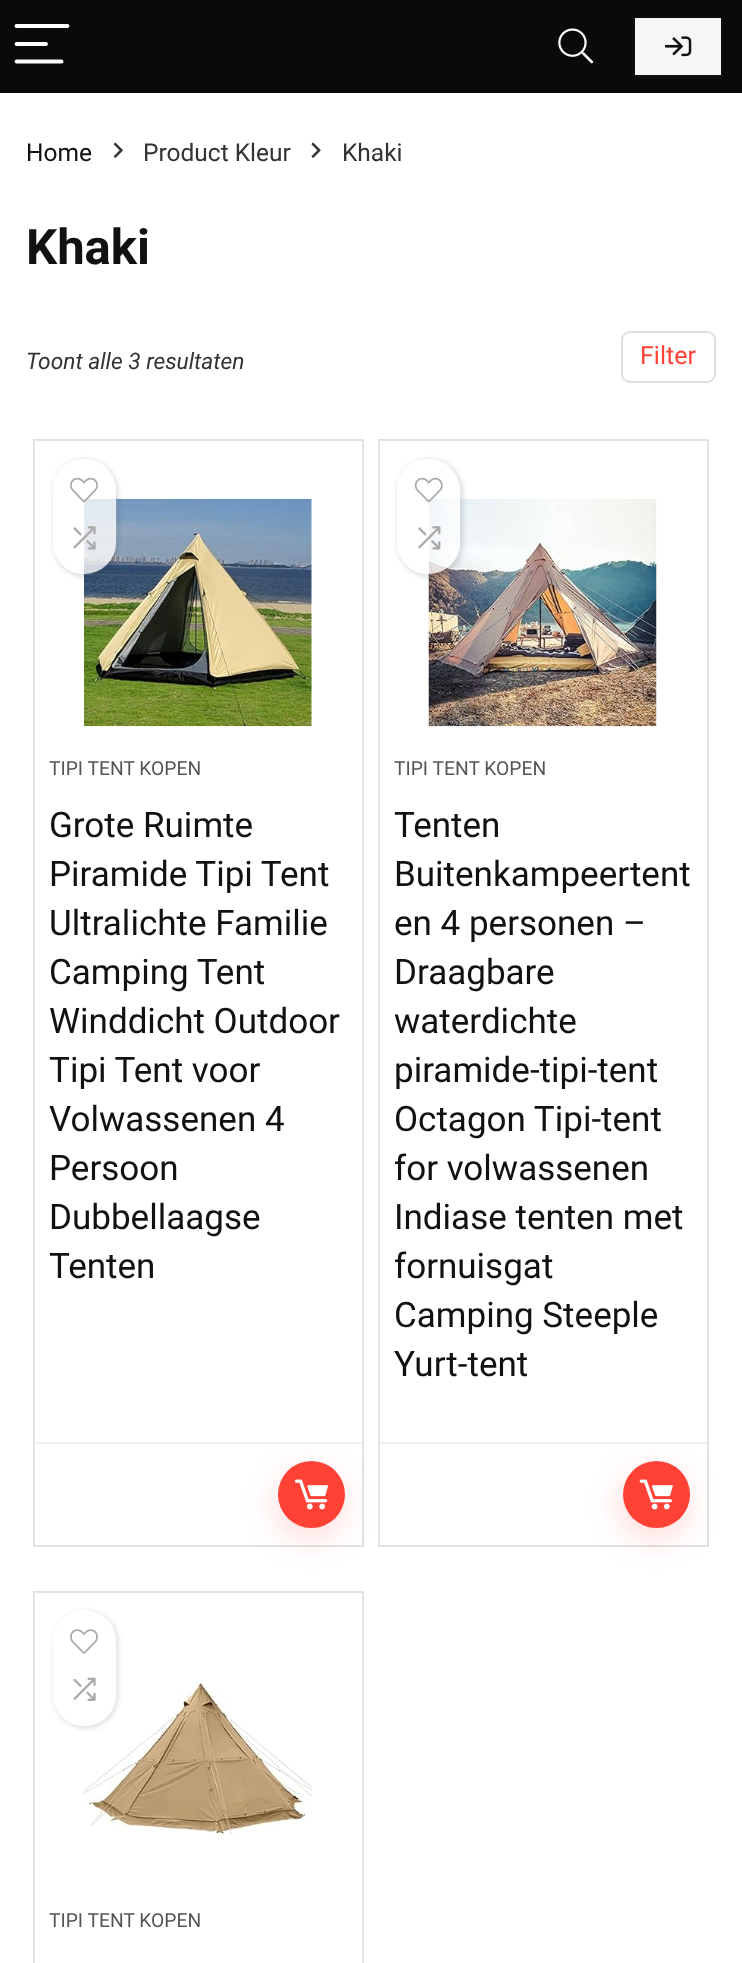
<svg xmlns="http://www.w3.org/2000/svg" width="742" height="1963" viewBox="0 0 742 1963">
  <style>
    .t1 { font: 24.5px Roboto; fill: #111; }
    .t2 { font: 24.5px Roboto; fill: #333; }
    .t3 { font: bold 49px Roboto; fill: #111; }
    .t4 { font: italic 22.75px Roboto; fill: #333; }
    .t5 { font: 25px Roboto; fill: #ff4136; }
    .t6 { font: 19.25px Roboto; fill: #555; }
    .t7 { font: 35px Roboto; fill: #111; }
  </style>
  <defs>
    <clipPath id="clip1"><path d="M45 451H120V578H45ZM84.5 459C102 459 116 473 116 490.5V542.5C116 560 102 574 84.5 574C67 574 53 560 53 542.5V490.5C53 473 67 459 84.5 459Z" clip-rule="evenodd"/></clipPath>
    <clipPath id="clip2"><path d="M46 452H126V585H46ZM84.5 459C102 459 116 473 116 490.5V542.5C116 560 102 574 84.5 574C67 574 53 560 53 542.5V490.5C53 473 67 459 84.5 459Z" clip-rule="evenodd"/></clipPath>
    <clipPath id="clip3"><path d="M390 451H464V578H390ZM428.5 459C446 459 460 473 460 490.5V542.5C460 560 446 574 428.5 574C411 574 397 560 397 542.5V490.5C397 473 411 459 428.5 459Z" clip-rule="evenodd"/></clipPath>
    <clipPath id="clip4"><path d="M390 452H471V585H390ZM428.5 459C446 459 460 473 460 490.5V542.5C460 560 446 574 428.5 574C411 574 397 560 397 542.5V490.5C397 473 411 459 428.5 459Z" clip-rule="evenodd"/></clipPath>
    <clipPath id="clip5"><path d="M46 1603H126V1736H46ZM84.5 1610C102 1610 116 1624 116 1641.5V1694.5C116 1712 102 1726 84.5 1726C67 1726 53 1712 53 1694.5V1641.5C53 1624 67 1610 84.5 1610Z" clip-rule="evenodd"/></clipPath>
  </defs>
  <rect width="100%" height="100%" fill="#fff"/>
  <rect x="0" y="0" width="742" height="93" fill="#0a0a0a"/>
  <path d="M16.5 26H67.5M16.5 44H46M16.5 61.5H61.5" fill="none" stroke="#fff" stroke-width="3.9" stroke-linecap="round"/>
  <image x="558" y="28" width="36" height="36" href="images/1.png"/>
  <rect x="635" y="19" width="86" height="58" fill="#3c40434d" filter="blur(2px)"/>
  <rect x="635" y="18" width="86" height="57" fill="#f6f6f6"/>
  <image x="665" y="36" width="27" height="21" href="images/2.png"/>
  <text x="26" y="161" class="t1">Home</text>
  <image x="113" y="142" width="10" height="16" href="images/3.png"/>
  <text x="143" y="161" class="t2">Product Kleur</text>
  <image x="311" y="142" width="10" height="16" href="images/4.png"/>
  <text x="342" y="161" class="t2">Khaki</text>
  <text x="26" y="264" class="t3">Khaki</text>
  <text x="26" y="369" class="t4">Toont alle 3 resultaten</text>
  <rect x="622" y="332" width="93" height="50" rx="8" fill="none" stroke="#dce0e0" stroke-width="2"/>
  <text x="640" y="364" class="t5">Filter</text>
  <rect x="34" y="440" width="329" height="1106" fill="none" stroke="#e2e2e2" stroke-width="2"/>
  <image x="84" y="498" width="228" height="229" href="images/7.png"/>
  <g clip-path="url(#clip1)">
    <rect x="49" y="455" width="67" height="119" rx="33.5" fill="#f7fbff80" filter="blur(1px)"/>
  </g>
  <g clip-path="url(#clip2)">
    <rect x="53" y="459" width="66" height="119" rx="33" fill="#0000001a" filter="blur(2px)"/>
  </g>
  <rect x="53" y="459" width="63" height="115" rx="31.5" fill="#ffffffc7"/>
  <image x="70" y="477" width="28" height="26" href="images/5.png"/>
  <image x="73" y="526" width="23" height="24" href="images/6.png"/>
  <text x="49" y="775" class="t6">TIPI TENT KOPEN</text>
  <text x="49" y="837" class="t7">Grote Ruimte</text>
  <text x="49" y="886" class="t7">Piramide Tipi Tent</text>
  <text x="49" y="935" class="t7">Ultralichte Familie</text>
  <text x="49" y="984" class="t7">Camping Tent</text>
  <text x="49" y="1033" class="t7">Winddicht Outdoor</text>
  <text x="49" y="1082" class="t7">Tipi Tent voor</text>
  <text x="49" y="1131" class="t7">Volwassenen 4</text>
  <text x="49" y="1180" class="t7">Persoon</text>
  <text x="49" y="1229" class="t7">Dubbellaagse</text>
  <text x="49" y="1278" class="t7">Tenten</text>
  <rect x="35" y="1442" width="327" height="2" fill="#f0f0f0"/>
  <rect x="277" y="1472" width="66" height="66" rx="33" fill="#ff413633" filter="blur(16.5px)"/>
  <circle cx="311.5" cy="1494.5" r="33.5" fill="#ff4136"/>
  <image x="294" y="1479" width="35" height="31" href="images/8.png"/>
  <rect x="379" y="440" width="329" height="1106" fill="none" stroke="#e2e2e2" stroke-width="2"/>
  <image x="428" y="498" width="229" height="229" href="images/11.png"/>
  <g clip-path="url(#clip3)">
    <rect x="394" y="455" width="66" height="119" rx="33" fill="#f7fbff80" filter="blur(1px)"/>
  </g>
  <g clip-path="url(#clip4)">
    <rect x="397" y="459" width="67" height="119" rx="33.5" fill="#0000001a" filter="blur(2px)"/>
  </g>
  <rect x="397" y="459" width="63" height="115" rx="31.5" fill="#ffffffc7"/>
  <image x="414" y="477" width="29" height="26" href="images/9.png"/>
  <image x="418" y="526" width="23" height="24" href="images/10.png"/>
  <text x="394" y="775" class="t6">TIPI TENT KOPEN</text>
  <text x="394" y="837" class="t7">Tenten</text>
  <text x="394" y="886" class="t7">Buitenkampeertent</text>
  <text x="394" y="935" class="t7">en 4 personen –</text>
  <text x="394" y="984" class="t7">Draagbare</text>
  <text x="394" y="1033" class="t7">waterdichte</text>
  <text x="394" y="1082" class="t7">piramide-tipi-tent</text>
  <text x="394" y="1131" class="t7">Octagon Tipi-tent</text>
  <text x="394" y="1180" class="t7">for volwassenen</text>
  <text x="394" y="1229" class="t7">Indiase tenten met</text>
  <text x="394" y="1278" class="t7">fornuisgat</text>
  <text x="394" y="1327" class="t7">Camping Steeple</text>
  <text x="394" y="1376" class="t7">Yurt-tent</text>
  <rect x="380" y="1442" width="327" height="2" fill="#f0f0f0"/>
  <rect x="621" y="1472" width="67" height="66" rx="33" fill="#ff413633" filter="blur(16.5px)"/>
  <circle cx="656.5" cy="1494.5" r="33.5" fill="#ff4136"/>
  <image x="639" y="1479" width="34" height="31" href="images/12.png"/>
  <rect x="34" y="1592" width="329" height="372" fill="none" stroke="#e2e2e2" stroke-width="2"/>
  <image x="84" y="1680" width="228" height="157" href="images/15.png"/>
  <g clip-path="url(#clip5)">
    <rect x="53" y="1610" width="66" height="119" rx="33" fill="#0000001a" filter="blur(2px)"/>
  </g>
  <rect x="53" y="1610" width="63" height="116" rx="31.5" fill="#ffffffc7"/>
  <image x="70" y="1629" width="28" height="25" href="images/13.png"/>
  <image x="73" y="1677" width="23" height="24" href="images/14.png"/>
  <text x="49" y="1927" class="t6">TIPI TENT KOPEN</text>
</svg>
